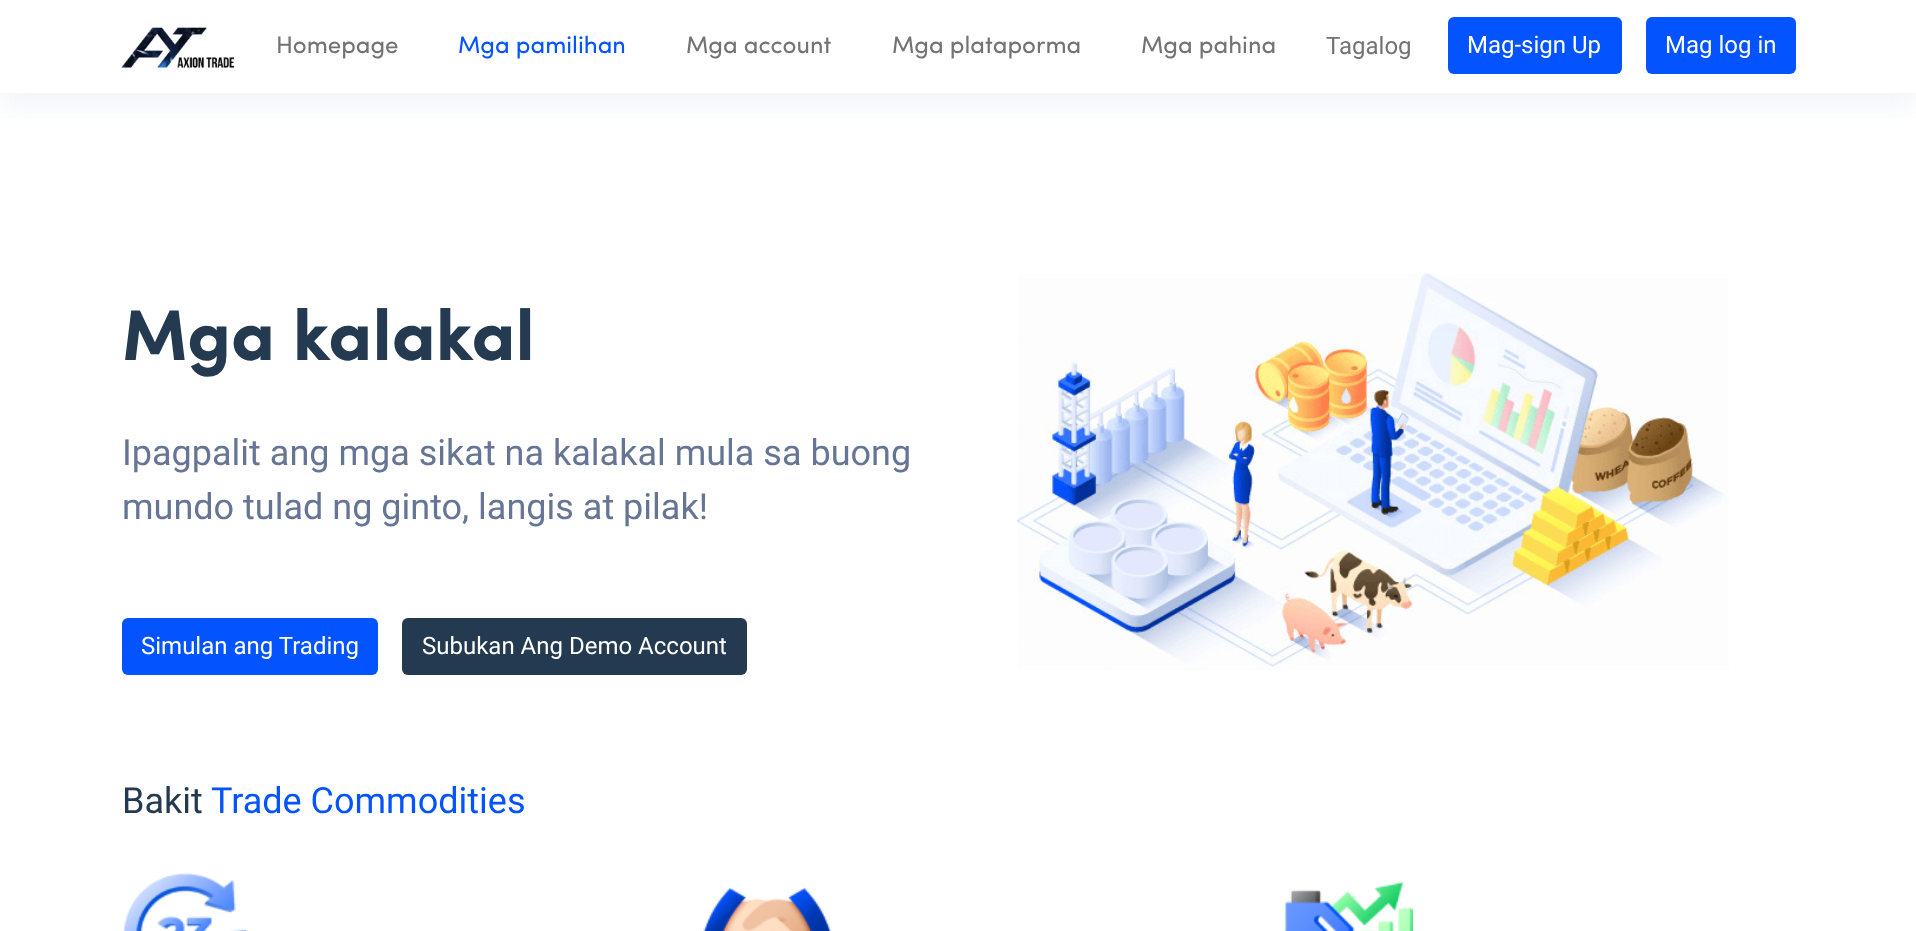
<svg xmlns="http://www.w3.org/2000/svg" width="1916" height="931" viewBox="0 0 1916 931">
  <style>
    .t1 { font: 24px Sofia; fill: #737373; }
    .t2 { font: 24px Sofia; fill: #0354ff; }
    .t3 { font: 24px Roboto; fill: #737373; }
    .t4 { font: 24px Roboto; fill: #fff; }
    .t5 { font: bold 72px Sofia; fill: #243a51; }
    .t6 { font: 36px Roboto; fill: #667595; }
    .t7 { font: 36px Roboto; fill: #243a51; }
    .t8 { font: 36px Roboto; fill: #0354ff; }
  </style>
  <defs>
    <clipPath id="clip1"><rect x="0" y="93" width="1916" height="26"/></clipPath>
  </defs>
  <rect width="100%" height="100%" fill="#fff"/>
  <g clip-path="url(#clip1)">
    <rect x="0" y="12" width="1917" height="93" fill="#839acb1f" filter="blur(15px)"/>
  </g>
  <image x="121" y="27" width="113" height="41" href="images/1.png"/>
  <text x="276" y="53" class="t1">Homepage</text>
  <text x="458" y="53" class="t2">Mga pamilihan</text>
  <text x="686" y="53" class="t1">Mga account</text>
  <text x="892" y="53" class="t1">Mga plataporma</text>
  <text x="1141" y="53" class="t1">Mga pahina</text>
  <text x="1326" y="54" class="t3">Tagalog</text>
  <rect x="1448" y="17" width="174" height="57" rx="6" fill="#0354ff"/>
  <text x="1467" y="53" class="t4">Mag-sign Up</text>
  <rect x="1646" y="17" width="150" height="57" rx="6" fill="#0354ff"/>
  <text x="1665" y="53" class="t4">Mag log in</text>
  <text x="122" y="360" class="t5">Mga kalakal</text>
  <text x="122" y="465" class="t6">Ipagpalit ang mga sikat na kalakal mula sa buong</text>
  <text x="122" y="519" class="t6">mundo tulad ng ginto, langis at pilak!</text>
  <rect x="122" y="618" width="256" height="57" rx="6" fill="#0354ff"/>
  <text x="141" y="654" class="t4">Simulan ang Trading</text>
  <rect x="402" y="618" width="345" height="57" rx="6" fill="#243a51"/>
  <text x="422" y="654" class="t4">Subukan Ang Demo Account</text>
  <image x="1017" y="273" width="712" height="398" href="images/2.png"/>
  <text x="122" y="813" class="t7">Bakit</text>
  <text x="211" y="813" class="t8">Trade Commodities</text>
  <image x="123" y="873" width="125" height="58" href="images/3.png"/>
  <image x="703" y="887" width="128" height="44" href="images/4.png"/>
  <image x="1285" y="881" width="128" height="50" href="images/5.png"/>
</svg>
